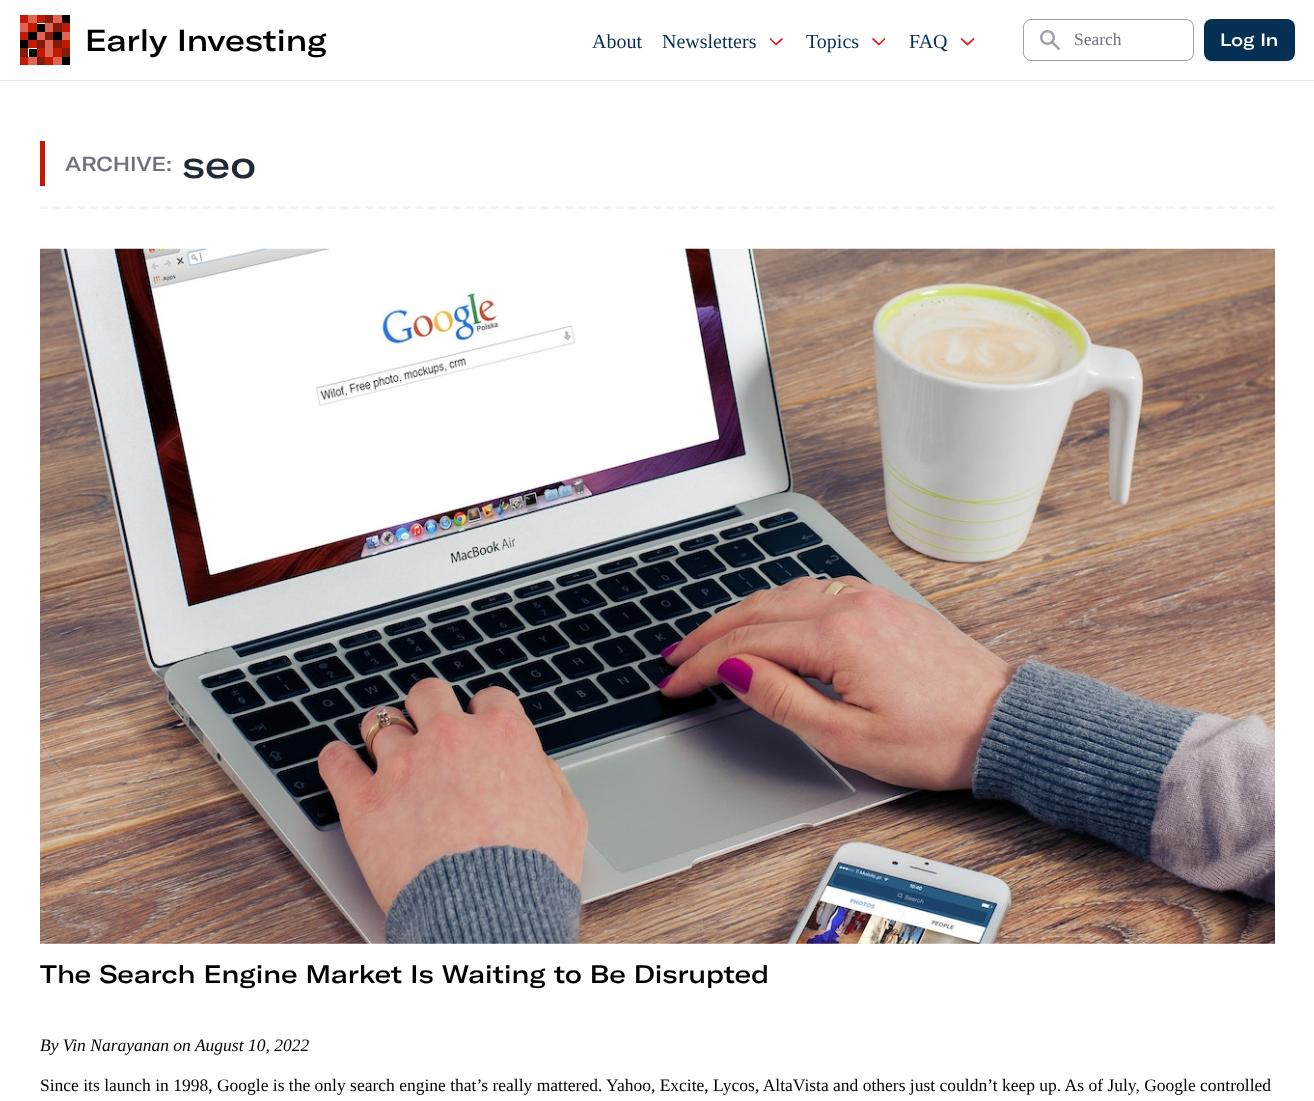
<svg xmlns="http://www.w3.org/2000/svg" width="1314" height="1101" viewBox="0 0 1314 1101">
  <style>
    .t1 { font: 500 30px GT America; fill: #000; }
    .t2 { font: 20px Liberation Serif; fill: #062f54; }
    .t3 { font: 17.5px Liberation Serif; fill: #6b7280; }
    .t4 { font: 500 17.5px GT America; fill: #fff; }
    .t5 { font: 500 20px GT America; fill: #6b7280; }
    .t6 { font: 500 38px GT America; fill: #1f2937; }
    .t7 { font: 500 25px GT America; fill: #000; }
    .t8 { font: italic 17.5px Liberation Serif; fill: #000; }
    .t9 { font: 17.5px Liberation Serif; fill: #000; }
  </style>
  <rect width="100%" height="100%" fill="#fff"/>
  <rect x="0" y="80" width="1314" height="1" fill="#e5e7eb"/>
  <image x="20" y="15" width="50" height="50" href="images/1.png"/>
  <text x="85" y="51" class="t1">Early Investing</text>
  <text x="592" y="48" class="t2">About</text>
  <text x="662" y="48" class="t2">Newsletters</text>
  <path d="M782 39L776 44.5L770.5 39" fill="none" stroke="#dc2626" stroke-width="1.7" stroke-linecap="round" stroke-linejoin="round"/>
  <text x="806" y="48" class="t2">Topics</text>
  <path d="M884.5 39L879 44.5L873 39" fill="none" stroke="#dc2626" stroke-width="1.7" stroke-linecap="round" stroke-linejoin="round"/>
  <text x="909" y="48" class="t2">FAQ</text>
  <path d="M973.5 39L967.5 44.5L961.5 39" fill="none" stroke="#dc2626" stroke-width="1.7" stroke-linecap="round" stroke-linejoin="round"/>
  <rect x="1023.5" y="19.5" width="170" height="41" rx="7.5" fill="none" stroke="#9ca3af"/>
  <image x="1040" y="30" width="20" height="20" href="images/2.png"/>
  <text x="1074" y="45" class="t3">Search</text>
  <rect x="1204" y="20" width="91" height="43" rx="8" fill="#0000000d" filter="blur(1px)"/>
  <rect x="1204" y="19" width="91" height="42" rx="8" fill="#062f54"/>
  <text x="1220" y="46" class="t4">Log In</text>
  <path d="M40 207.5H1275" fill="none" stroke="#f3f4f6" stroke-width="2.5" stroke-dasharray="7.5 5.02"/>
  <rect x="40" y="141" width="5" height="45" fill="#c11902"/>
  <text x="65" y="171" class="t5">ARCHIVE:</text>
  <text x="182" y="178" class="t6">seo</text>
  <image x="40" y="248" width="1235" height="696" href="images/3.png"/>
  <text x="40" y="983" class="t7">The Search Engine Market Is Waiting to Be Disrupted</text>
  <text x="40" y="1051" class="t8">By Vin Narayanan on August 10, 2022</text>
  <text x="40" y="1091" class="t9">Since its launch in 1998, Google is the only search engine that’s really mattered. Yahoo, Excite, Lycos, AltaVista and others just couldn’t keep up. As of July, Google controlled</text>
</svg>
